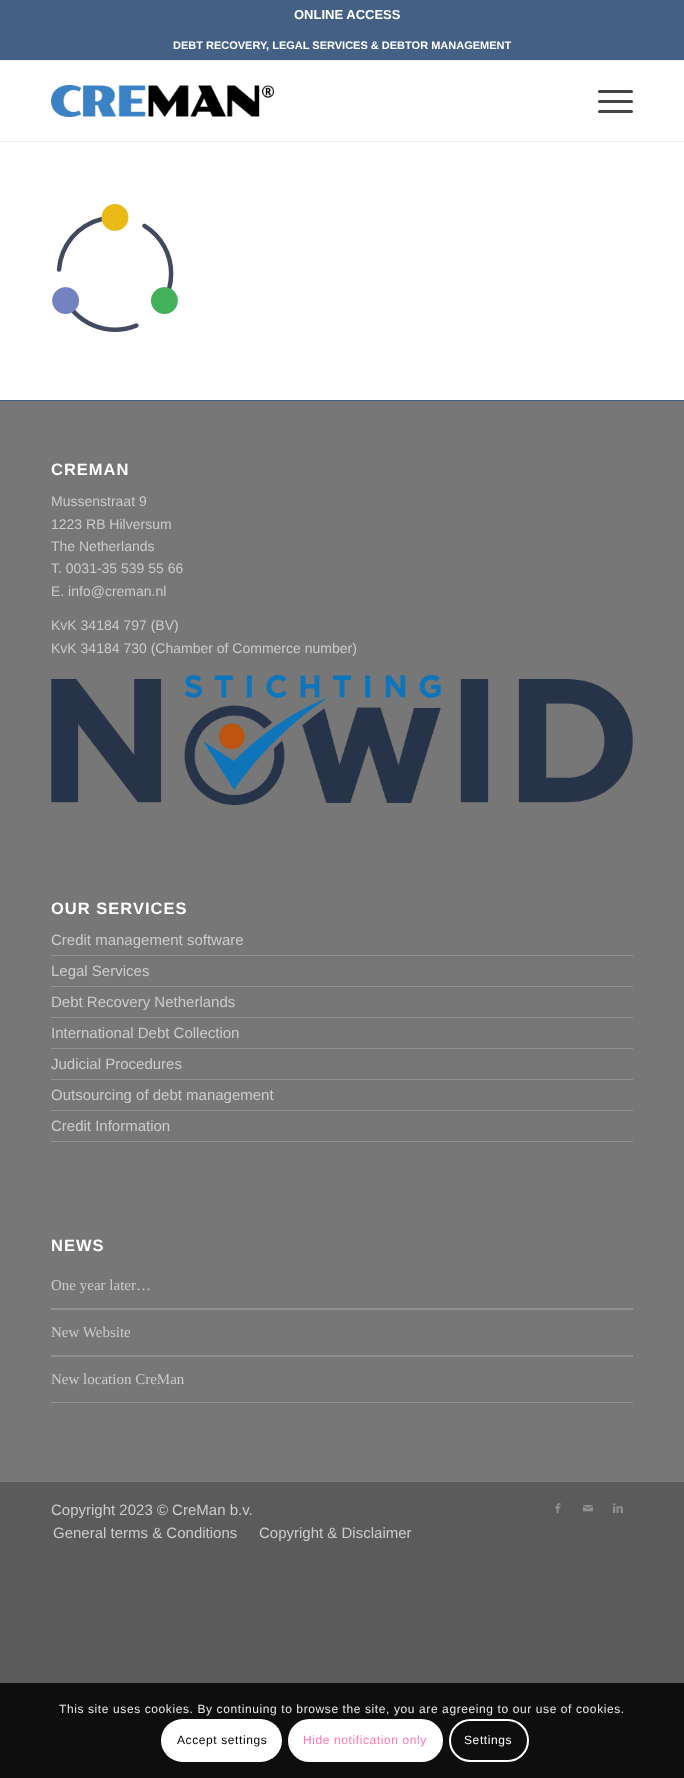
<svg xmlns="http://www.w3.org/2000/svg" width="684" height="1778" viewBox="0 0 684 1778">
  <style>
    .t1 { font: bold 13px Liberation Sans; fill: #fff; }
    .t2 { font: bold 11px Liberation Sans; fill: #fff; }
    .t3 { font: bold 16.5px Liberation Sans; letter-spacing: 1px; fill: #fff; }
    .t4 { font: 14px Liberation Sans; fill: #ccc; }
    .t5 { font: 15px Liberation Sans; fill: #ccc; }
    .t6 { font: 15px Liberation Serif; fill: #ccc; }
    .t7 { font: 12px Liberation Sans; letter-spacing: 0.6px; fill: #e7e7e7; }
    .t8 { font: 12px Liberation Sans; letter-spacing: 0.6px; fill: #000; }
    .t9 { font: 12px Liberation Sans; letter-spacing: 0.6px; fill: #ff75b5; }
    .t10 { font: 12px Liberation Sans; letter-spacing: 0.6px; fill: #fff; }
  </style>
  <rect width="100%" height="100%" fill="#5b5b5b"/>
  <rect x="0" y="61" width="684" height="339" fill="#fff"/>
  <rect x="0" y="0" width="684" height="60" fill="#446084"/>
  <rect x="0" y="60" width="684" height="1" fill="#eee"/>
  <text x="294" y="19" class="t1">ONLINE ACCESS</text>
  <text x="173" y="49" class="t2">DEBT RECOVERY, LEGAL SERVICES &amp; DEBTOR MANAGEMENT</text>
  <rect x="0" y="141" width="684" height="1" fill="#eee"/>
  <image x="51" y="85" width="223" height="32" href="images/1.png"/>
  <rect x="598" y="100" width="35" height="3" rx="1.5" fill="#444"/>
  <rect x="598" y="90" width="35" height="3" rx="1.5" fill="#444"/>
  <rect x="598" y="110" width="35" height="3" rx="1.5" fill="#444"/>
  <image x="52" y="204" width="126" height="128" href="images/2.png"/>
  <rect x="0" y="401" width="684" height="1081" fill="#777"/>
  <rect x="0" y="400" width="684" height="1" fill="#446084"/>
  <text x="51" y="475" class="t3">CREMAN</text>
  <text x="51" y="506" class="t4">Mussenstraat 9</text>
  <text x="51" y="529" class="t4">1223 RB Hilversum</text>
  <text x="51" y="551" class="t4">The Netherlands</text>
  <text x="51" y="573" class="t4">T. 0031-35 539 55 66</text>
  <text x="51" y="596" class="t4">E. info@creman.nl</text>
  <text x="51" y="630" class="t4">KvK 34184 797 (BV)</text>
  <text x="51" y="653" class="t4">KvK 34184 730 (Chamber of Commerce number)</text>
  <image x="51" y="675" width="582" height="130" href="images/3.png"/>
  <text x="51" y="914" class="t3">OUR SERVICES</text>
  <rect x="51" y="955" width="582" height="1" fill="#919191"/>
  <text x="51" y="945" class="t5">Credit management software</text>
  <rect x="51" y="986" width="582" height="1" fill="#919191"/>
  <text x="51" y="976" class="t5">Legal Services</text>
  <rect x="51" y="1017" width="582" height="1" fill="#919191"/>
  <text x="51" y="1007" class="t5">Debt Recovery Netherlands</text>
  <rect x="51" y="1048" width="582" height="1" fill="#919191"/>
  <text x="51" y="1038" class="t5">International Debt Collection</text>
  <rect x="51" y="1079" width="582" height="1" fill="#919191"/>
  <text x="51" y="1069" class="t5">Judicial Procedures</text>
  <rect x="51" y="1110" width="582" height="1" fill="#919191"/>
  <text x="51" y="1100" class="t5">Outsourcing of debt management</text>
  <rect x="51" y="1141" width="582" height="1" fill="#919191"/>
  <text x="51" y="1131" class="t5">Credit Information</text>
  <text x="51" y="1251" class="t3">NEWS</text>
  <rect x="51" y="1308" width="582" height="2" fill="#919191"/>
  <text x="51" y="1290" class="t6">One year later…</text>
  <rect x="51" y="1355" width="582" height="2" fill="#919191"/>
  <text x="51" y="1337" class="t6">New Website</text>
  <rect x="51" y="1402" width="582" height="1" fill="#919191"/>
  <text x="51" y="1384" class="t6">New location CreMan</text>
  <text x="51" y="1515" class="t5">Copyright 2023 © CreMan b.v.</text>
  <image x="555" y="1503" width="6" height="11" href="images/4.png"/>
  <image x="583" y="1505" width="10" height="7" href="images/5.png"/>
  <image x="613" y="1503" width="10" height="10" href="images/6.png"/>
  <text x="53" y="1538" class="t5">General terms &amp; Conditions</text>
  <text x="259" y="1538" class="t5">Copyright &amp; Disclaimer</text>
  <rect x="0" y="1683" width="684" height="95" fill="#0e0e0e"/>
  <text x="59" y="1713" class="t7">This site uses cookies. By continuing to browse the site, you are agreeing to our use of cookies.</text>
  <rect x="161" y="1719" width="121" height="43" rx="21.5" fill="#fff"/>
  <text x="177" y="1744" class="t8">Accept settings</text>
  <rect x="289" y="1720" width="153" height="41" rx="20.5" fill="#fff" stroke="#fff" stroke-width="2"/>
  <text x="303" y="1744" class="t9">Hide notification only</text>
  <rect x="450" y="1720" width="78" height="41" rx="20.5" fill="none" stroke="#fff" stroke-width="2"/>
  <text x="464" y="1744" class="t10">Settings</text>
</svg>
